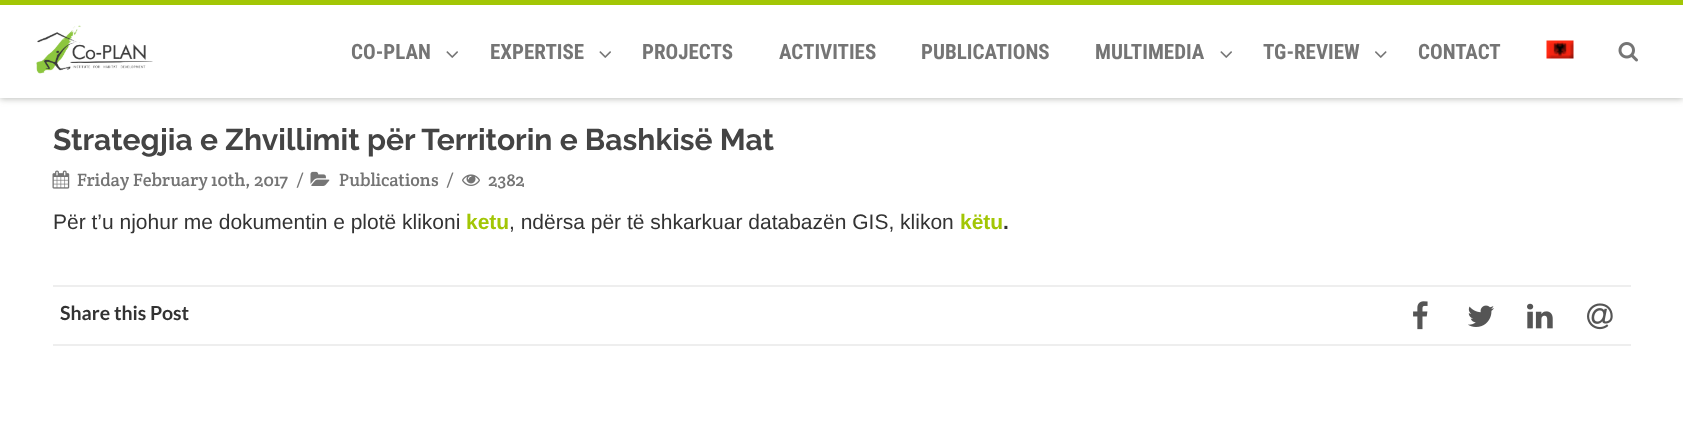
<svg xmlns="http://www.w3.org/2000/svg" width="1683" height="424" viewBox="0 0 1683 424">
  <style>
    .t1 { font: bold 21px Roboto Condensed; fill: #757575; }
    .t2 { font: bold 30px Raleway; fill: #444; }
    .t3 { font: 18px Crete Round; fill: #757575; }
    .t4 { font: 21px Liberation Sans; fill: #333; }
    .t5 { font: bold 21px Liberation Sans; fill: #a2c605; }
    .t6 { font: bold 21px Liberation Sans; fill: #333; }
    .t7 { font: bold 19.5px Lato; fill: #333; }
  </style>
  <defs>
    <clipPath id="clip1"><path d="M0 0H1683V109H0ZM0 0H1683V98H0Z" clip-rule="evenodd"/></clipPath>
  </defs>
  <rect width="100%" height="100%" fill="#fff"/>
  <g clip-path="url(#clip1)">
    <rect x="0" y="2" width="1683" height="97" fill="#a7a9a4bf" filter="blur(3px)"/>
  </g>
  <rect x="0" y="97" width="1683" height="1" fill="#fffffff2"/>
  <rect x="0" y="0" width="1683" height="5" fill="#a2c605"/>
  <image x="36" y="25" width="117" height="49" href="images/1.png"/>
  <text x="351" y="59" class="t1">CO-PLAN</text>
  <image x="446" y="51" width="12" height="7" href="images/2.png"/>
  <text x="490" y="59" class="t1">EXPERTISE</text>
  <image x="599" y="51" width="12" height="7" href="images/2.png"/>
  <text x="642" y="59" class="t1">PROJECTS</text>
  <text x="779" y="59" class="t1">ACTIVITIES</text>
  <text x="921" y="59" class="t1">PUBLICATIONS</text>
  <text x="1095" y="59" class="t1">MULTIMEDIA</text>
  <image x="1220" y="51" width="12" height="7" href="images/2.png"/>
  <text x="1263" y="59" class="t1">TG-REVIEW</text>
  <image x="1375" y="51" width="12" height="7" href="images/3.png"/>
  <text x="1418" y="59" class="t1">CONTACT</text>
  <image x="1546" y="40" width="28" height="19" href="images/4.png"/>
  <image x="1618" y="42" width="20" height="20" href="images/5.png"/>
  <text x="53" y="150" class="t2">Strategjia e Zhvillimit për Territorin e Bashkisë Mat</text>
  <image x="52" y="170" width="18" height="19" href="images/6.png"/>
  <text x="77" y="186" class="t3">Friday February 10th, 2017</text>
  <text x="296" y="186" class="t3">/</text>
  <image x="310" y="171" width="20" height="15" href="images/7.png"/>
  <text x="339" y="186" class="t3">Publications</text>
  <text x="446" y="186" class="t3">/</text>
  <image x="462" y="174" width="18" height="12" href="images/8.png"/>
  <text x="488" y="186" class="t3">2382</text>
  <text x="53" y="229" class="t4">Për t’u njohur me dokumentin e plotë klikoni</text>
  <text x="466" y="229" class="t5">ketu</text>
  <text x="509" y="229" class="t4">, ndërsa për të shkarkuar databazën GIS, klikon</text>
  <text x="960" y="229" class="t5">këtu</text>
  <text x="1003" y="229" class="t6">.</text>
  <rect x="53" y="285" width="1578" height="2" fill="#eee"/>
  <rect x="53" y="344" width="1578" height="2" fill="#eee"/>
  <text x="60" y="320" class="t7">Share this Post</text>
  <image x="1413" y="301" width="15" height="29" href="images/9.png"/>
  <image x="1468" y="305" width="26" height="22" href="images/10.png"/>
  <image x="1527" y="303" width="26" height="26" href="images/11.png"/>
  <image x="1587" y="303" width="26" height="27" href="images/12.png"/>
</svg>
